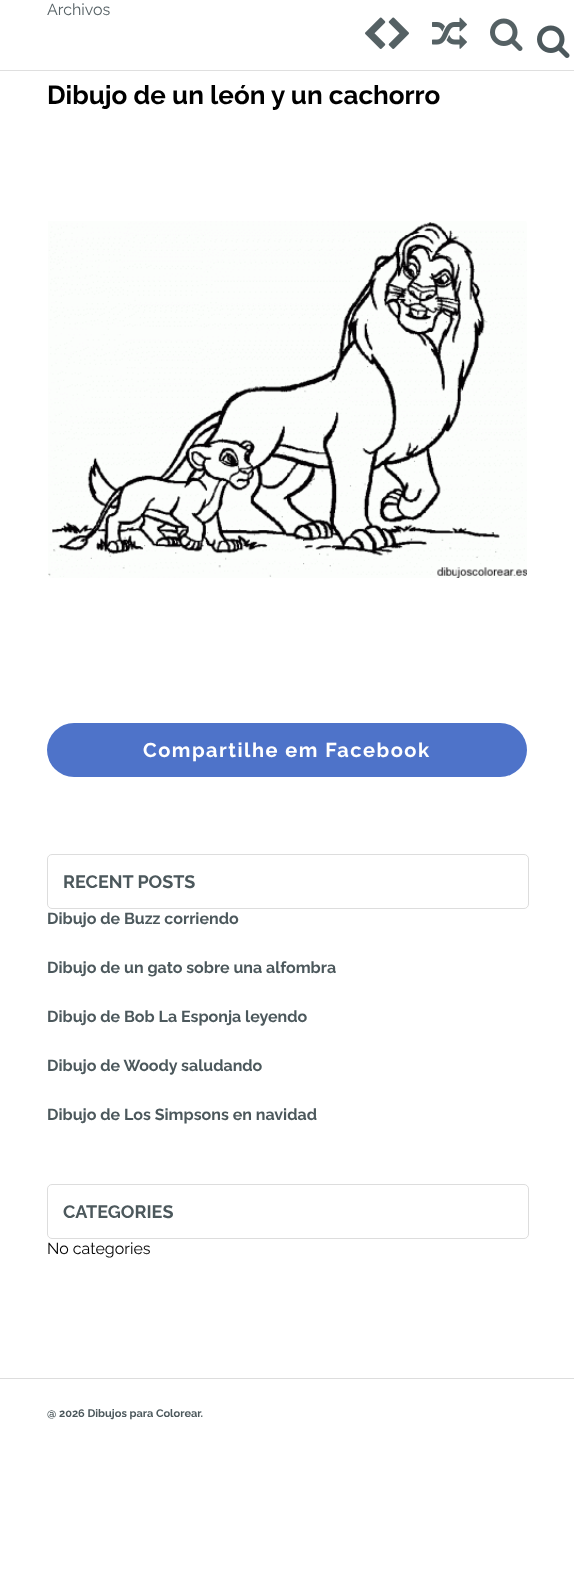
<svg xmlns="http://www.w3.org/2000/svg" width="574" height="1587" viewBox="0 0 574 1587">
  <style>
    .t1 { font: 16px Raleway; fill: #556064; }
    .t2 { font: bold 26px Raleway; fill: #000; }
    .t3 { font: bold 20px Raleway; letter-spacing: 1.5px; fill: #fff; }
    .t4 { font: bold 18px Raleway; fill: #4c585c; }
    .t5 { font: bold 16px Raleway; fill: #4c585c; }
    .t6 { font: 16px Raleway; fill: #000; }
    .t7 { font: bold 11px Raleway; fill: #4c585c; }
  </style>
  <rect width="100%" height="100%" fill="#fff"/>
  <rect x="0" y="70" width="574" height="1" fill="#dfdfdf"/>
  <text x="47" y="15" class="t1">Archivos</text>
  <image x="365" y="17" width="21" height="32" href="images/1.png"/>
  <image x="388" y="17" width="21" height="32" href="images/2.png"/>
  <image x="432" y="17" width="35" height="32" href="images/3.png"/>
  <image x="490" y="18" width="33" height="33" href="images/4.png"/>
  <text x="47" y="104" class="t2">Dibujo de un león y un cachorro</text>
  <image x="48" y="221" width="479" height="357" href="images/5.png"/>
  <rect x="47" y="723" width="480" height="54" rx="27" fill="#4e73c9"/>
  <text x="143" y="757" class="t3">Compartilhe em Facebook</text>
  <image x="537" y="25" width="33" height="33" href="images/6.png"/>
  <rect x="47.5" y="854.5" width="481" height="54" rx="4.5" fill="none" stroke="#ddd"/>
  <text x="63" y="888" class="t4">RECENT POSTS</text>
  <text x="47" y="924" class="t5">Dibujo de Buzz corriendo</text>
  <text x="47" y="973" class="t5">Dibujo de un gato sobre una alfombra</text>
  <text x="47" y="1022" class="t5">Dibujo de Bob La Esponja leyendo</text>
  <text x="47" y="1071" class="t5">Dibujo de Woody saludando</text>
  <text x="47" y="1120" class="t5">Dibujo de Los Simpsons en navidad</text>
  <rect x="47.5" y="1184.5" width="481" height="54" rx="4.5" fill="none" stroke="#ddd"/>
  <text x="63" y="1218" class="t4">CATEGORIES</text>
  <text x="47" y="1254" class="t6">No categories</text>
  <rect x="0" y="1378" width="574" height="1" fill="#ddd"/>
  <text x="47" y="1417" class="t7">@ 2026 Dibujos para Colorear.</text>
</svg>
